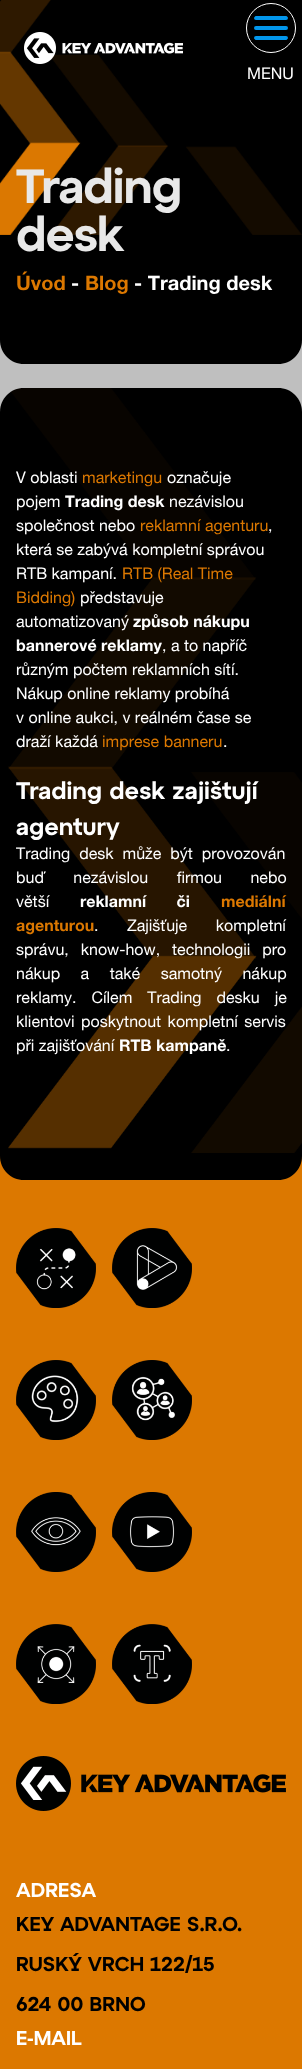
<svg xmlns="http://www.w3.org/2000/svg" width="302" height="2069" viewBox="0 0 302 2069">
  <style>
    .t1 { font: 16px Helvetica Neue; fill: #fff; }
    .t2 { font: 600 48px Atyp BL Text; letter-spacing: -1px; fill: #e8e8e8; }
    .t3 { font: bold 20px Helvetica Neue; fill: #dc7800; }
    .t4 { font: bold 20px Helvetica Neue; fill: #fff; }
    .t5 { font: 16px Helvetica Neue; fill: #dc7800; }
    .t6 { font: bold 16px Helvetica Neue; fill: #fff; }
    .t7 { font: 600 24px Atyp BL Text; fill: #fff; }
    .t8 { font: bold 16px Helvetica Neue; fill: #dc7800; }
    .t9 { font: 600 20px Atyp BL Text; fill: #fff; }
    .t10 { font: 600 20px Atyp BL Text; fill: #000; }
  </style>
  <defs>
    <clipPath id="clip1"><rect x="251" y="8" width="40" height="40" rx="20"/></clipPath>
  </defs>
  <rect width="100%" height="100%" fill="#bfbfbf"/>
  <path d="M0 0H302V340C302 353.5 291.5 364 278 364H24C10.5 364 0 353.5 0 340Z" fill="#000"/>
  <image x="0" y="0" width="302" height="235" href="images/2.png"/>
  <image x="24" y="32" width="159" height="32" href="images/1.png"/>
  <g clip-path="url(#clip1)">
    <path d="M256 18H286M256 28H286M256 38H286" fill="none" stroke="#0297ed" stroke-width="4" stroke-linecap="round" stroke-linejoin="round"/>
  </g>
  <circle cx="271" cy="28" r="24.5" fill="none" stroke="#fff"/>
  <text x="247" y="79" class="t1">MENU</text>
  <text x="16" y="203" class="t2">Trading</text>
  <text x="16" y="251" class="t2">desk</text>
  <text x="16" y="290" class="t3">Úvod</text>
  <text x="71" y="290" class="t4">-</text>
  <text x="85" y="290" class="t3">Blog</text>
  <text x="134" y="290" class="t4">- Trading desk</text>
  <path d="M24 388H278C291.5 388 302 398.5 302 412V1156H0V412C0 398.5 10.5 388 24 388Z" fill="#000"/>
  <image x="8" y="388" width="294" height="765" href="images/3.png"/>
  <text x="16" y="483" class="t1">V oblasti</text>
  <text x="82" y="483" class="t5">marketingu</text>
  <text x="167" y="483" class="t1">označuje</text>
  <text x="16" y="507" class="t1">pojem</text>
  <text x="65" y="507" class="t6">Trading desk</text>
  <text x="169" y="507" class="t1">nezávislou</text>
  <text x="16" y="531" class="t1">společnost nebo</text>
  <text x="140" y="531" class="t5">reklamní agenturu</text>
  <text x="268" y="531" class="t1">,</text>
  <text x="16" y="555" class="t1">která se zabývá kompletní správou</text>
  <text x="16" y="579" class="t1">RTB kampaní.</text>
  <text x="122" y="579" class="t5">RTB (Real Time</text>
  <text x="16" y="603" class="t5">Bidding)</text>
  <text x="80" y="603" class="t1">představuje</text>
  <text x="16" y="627" class="t1">automatizovaný</text>
  <text x="133" y="627" class="t6">způsob nákupu</text>
  <text x="16" y="651" class="t6">bannerové reklamy</text>
  <text x="162" y="651" class="t1">, a to napříč</text>
  <text x="16" y="675" class="t1">různým počtem reklamních sítí.</text>
  <text x="16" y="699" class="t1">Nákup online reklamy probíhá</text>
  <text x="16" y="723" class="t1">v online aukci, v reálném čase se</text>
  <text x="16" y="747" class="t1">draží každá</text>
  <text x="102" y="747" class="t5">imprese banneru</text>
  <text x="223" y="747" class="t1">.</text>
  <text x="16" y="799" class="t7">Trading desk zajištují</text>
  <text x="16" y="835" class="t7">agentury</text>
  <text x="16" y="859" word-spacing="4.5" class="t1">Trading desk může být provozován</text>
  <text x="16" y="883" word-spacing="24" class="t1">buď nezávislou firmou nebo</text>
  <text x="16" y="907" class="t1">větší</text>
  <text x="80" y="907" word-spacing="26" class="t6">reklamní či</text>
  <text x="221" y="907" class="t8">mediální</text>
  <text x="16" y="931" class="t8">agenturou</text>
  <text x="94" y="931" word-spacing="24" class="t1">. Zajišťuje kompletní</text>
  <text x="16" y="955" word-spacing="7.5" class="t1">správu, know-how, technologii pro</text>
  <text x="16" y="979" word-spacing="16" class="t1">nákup a také samotný nákup</text>
  <text x="16" y="1003" word-spacing="10.5" class="t1">reklamy. Cílem Trading desku je</text>
  <text x="16" y="1027" word-spacing="2" class="t1">klientovi poskytnout kompletní servis</text>
  <text x="16" y="1051" class="t1">při zajišťování</text>
  <text x="119" y="1051" class="t6">RTB kampaně</text>
  <text x="226" y="1051" class="t1">.</text>
  <rect x="0" y="1156" width="302" height="913" fill="#dc7800"/>
  <path d="M0 1156H302C302 1169.5 291.5 1180 278 1180H24C10.5 1180 0 1169.5 0 1156Z" fill="#000"/>
  <image x="16" y="1228" width="80" height="80" href="images/4.png"/>
  <image x="112" y="1228" width="80" height="80" href="images/5.png"/>
  <image x="16" y="1360" width="80" height="80" href="images/6.png"/>
  <image x="112" y="1360" width="80" height="80" href="images/7.png"/>
  <image x="16" y="1492" width="80" height="80" href="images/8.png"/>
  <image x="112" y="1492" width="80" height="80" href="images/9.png"/>
  <image x="16" y="1624" width="80" height="80" href="images/10.png"/>
  <image x="112" y="1624" width="80" height="80" href="images/11.png"/>
  <image x="16" y="1756" width="270" height="55" href="images/12.png"/>
  <text x="16" y="1897" class="t9">ADRESA</text>
  <text x="16" y="1931" class="t10">KEY ADVANTAGE S.R.O.</text>
  <text x="16" y="1971" class="t10">RUSKÝ VRCH 122/15</text>
  <text x="16" y="2011" class="t10">624 00 BRNO</text>
  <text x="16" y="2045" class="t9">E-MAIL</text>
</svg>
